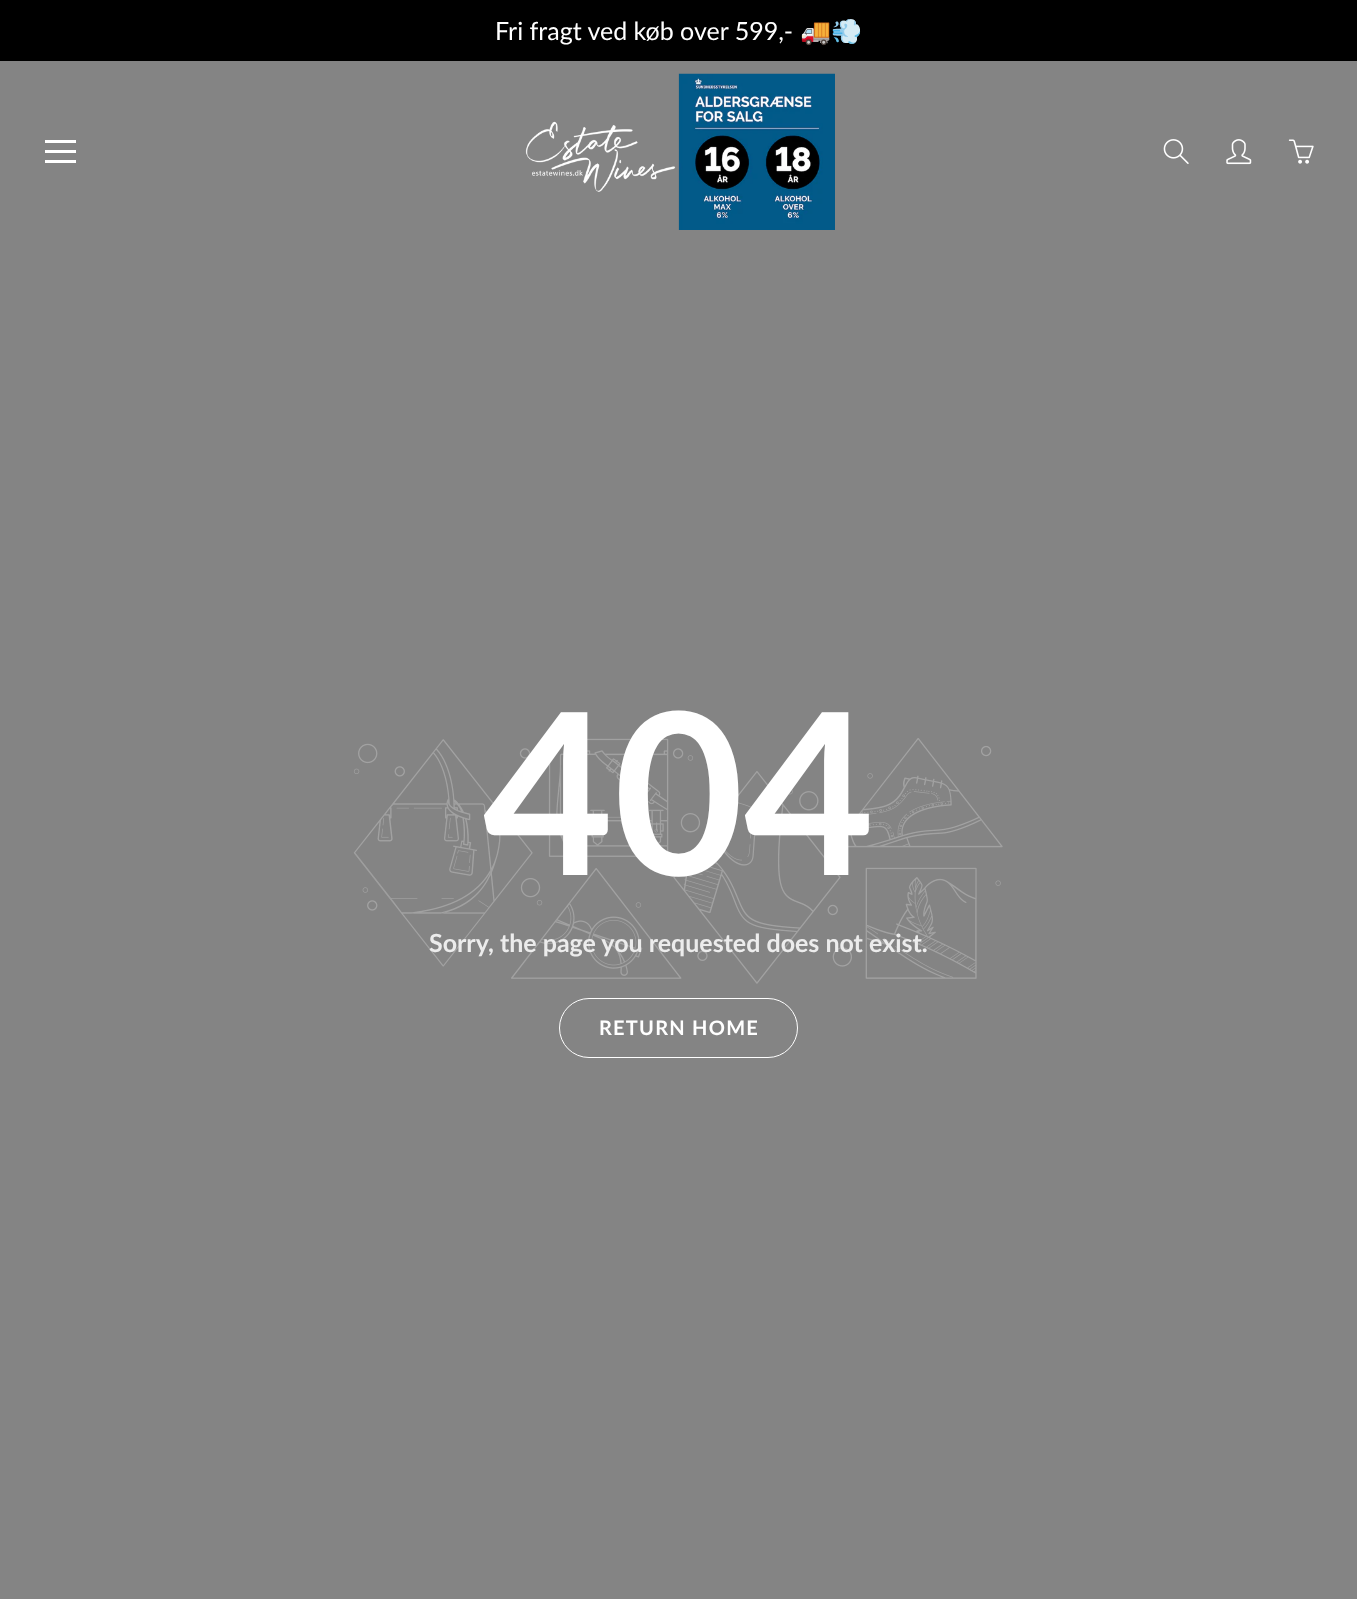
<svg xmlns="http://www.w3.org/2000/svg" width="1357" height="1599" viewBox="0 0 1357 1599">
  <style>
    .t1 { font: 25px Lato; fill: #fff; }
    .t2 { font: 25px Noto Color Emoji; fill: #fff; }
    .t3 { font: bold 225px Lato; fill: #fff; }
    .t4 { font: bold 25px Lato; fill: #ececec; }
    .t5 { font: bold 20px Lato; letter-spacing: 1.25px; fill: #fff; }
  </style>
  <rect width="100%" height="100%" fill="#848484"/>
  <rect x="0" y="0" width="1357" height="61" fill="#000"/>
  <text x="495" y="40" class="t1">Fri fragt ved køb over 599,-</text>
  <text x="800" y="40" class="t2">🚚💨</text>
  <image x="525" y="73" width="310" height="157" href="images/1.png"/>
  <rect x="45" y="150" width="31" height="3" fill="#fff"/>
  <rect x="45" y="140" width="31" height="3" fill="#fff"/>
  <rect x="45" y="160" width="31" height="3" fill="#fff"/>
  <image x="1163" y="139" width="26" height="25" href="images/2.png"/>
  <image x="1226" y="139" width="26" height="26" href="images/3.png"/>
  <image x="1288" y="139" width="26" height="25" href="images/4.png"/>
  <image x="353" y="738" width="650" height="246" href="images/5.png"/>
  <text x="483" y="875" class="t3">404</text>
  <text x="429" y="952" class="t4">Sorry, the page you requested does not exist.</text>
  <rect x="559.5" y="998.5" width="238" height="59" rx="29.5" fill="none" stroke="#fff"/>
  <text x="599" y="1035" class="t5">RETURN HOME</text>
</svg>
